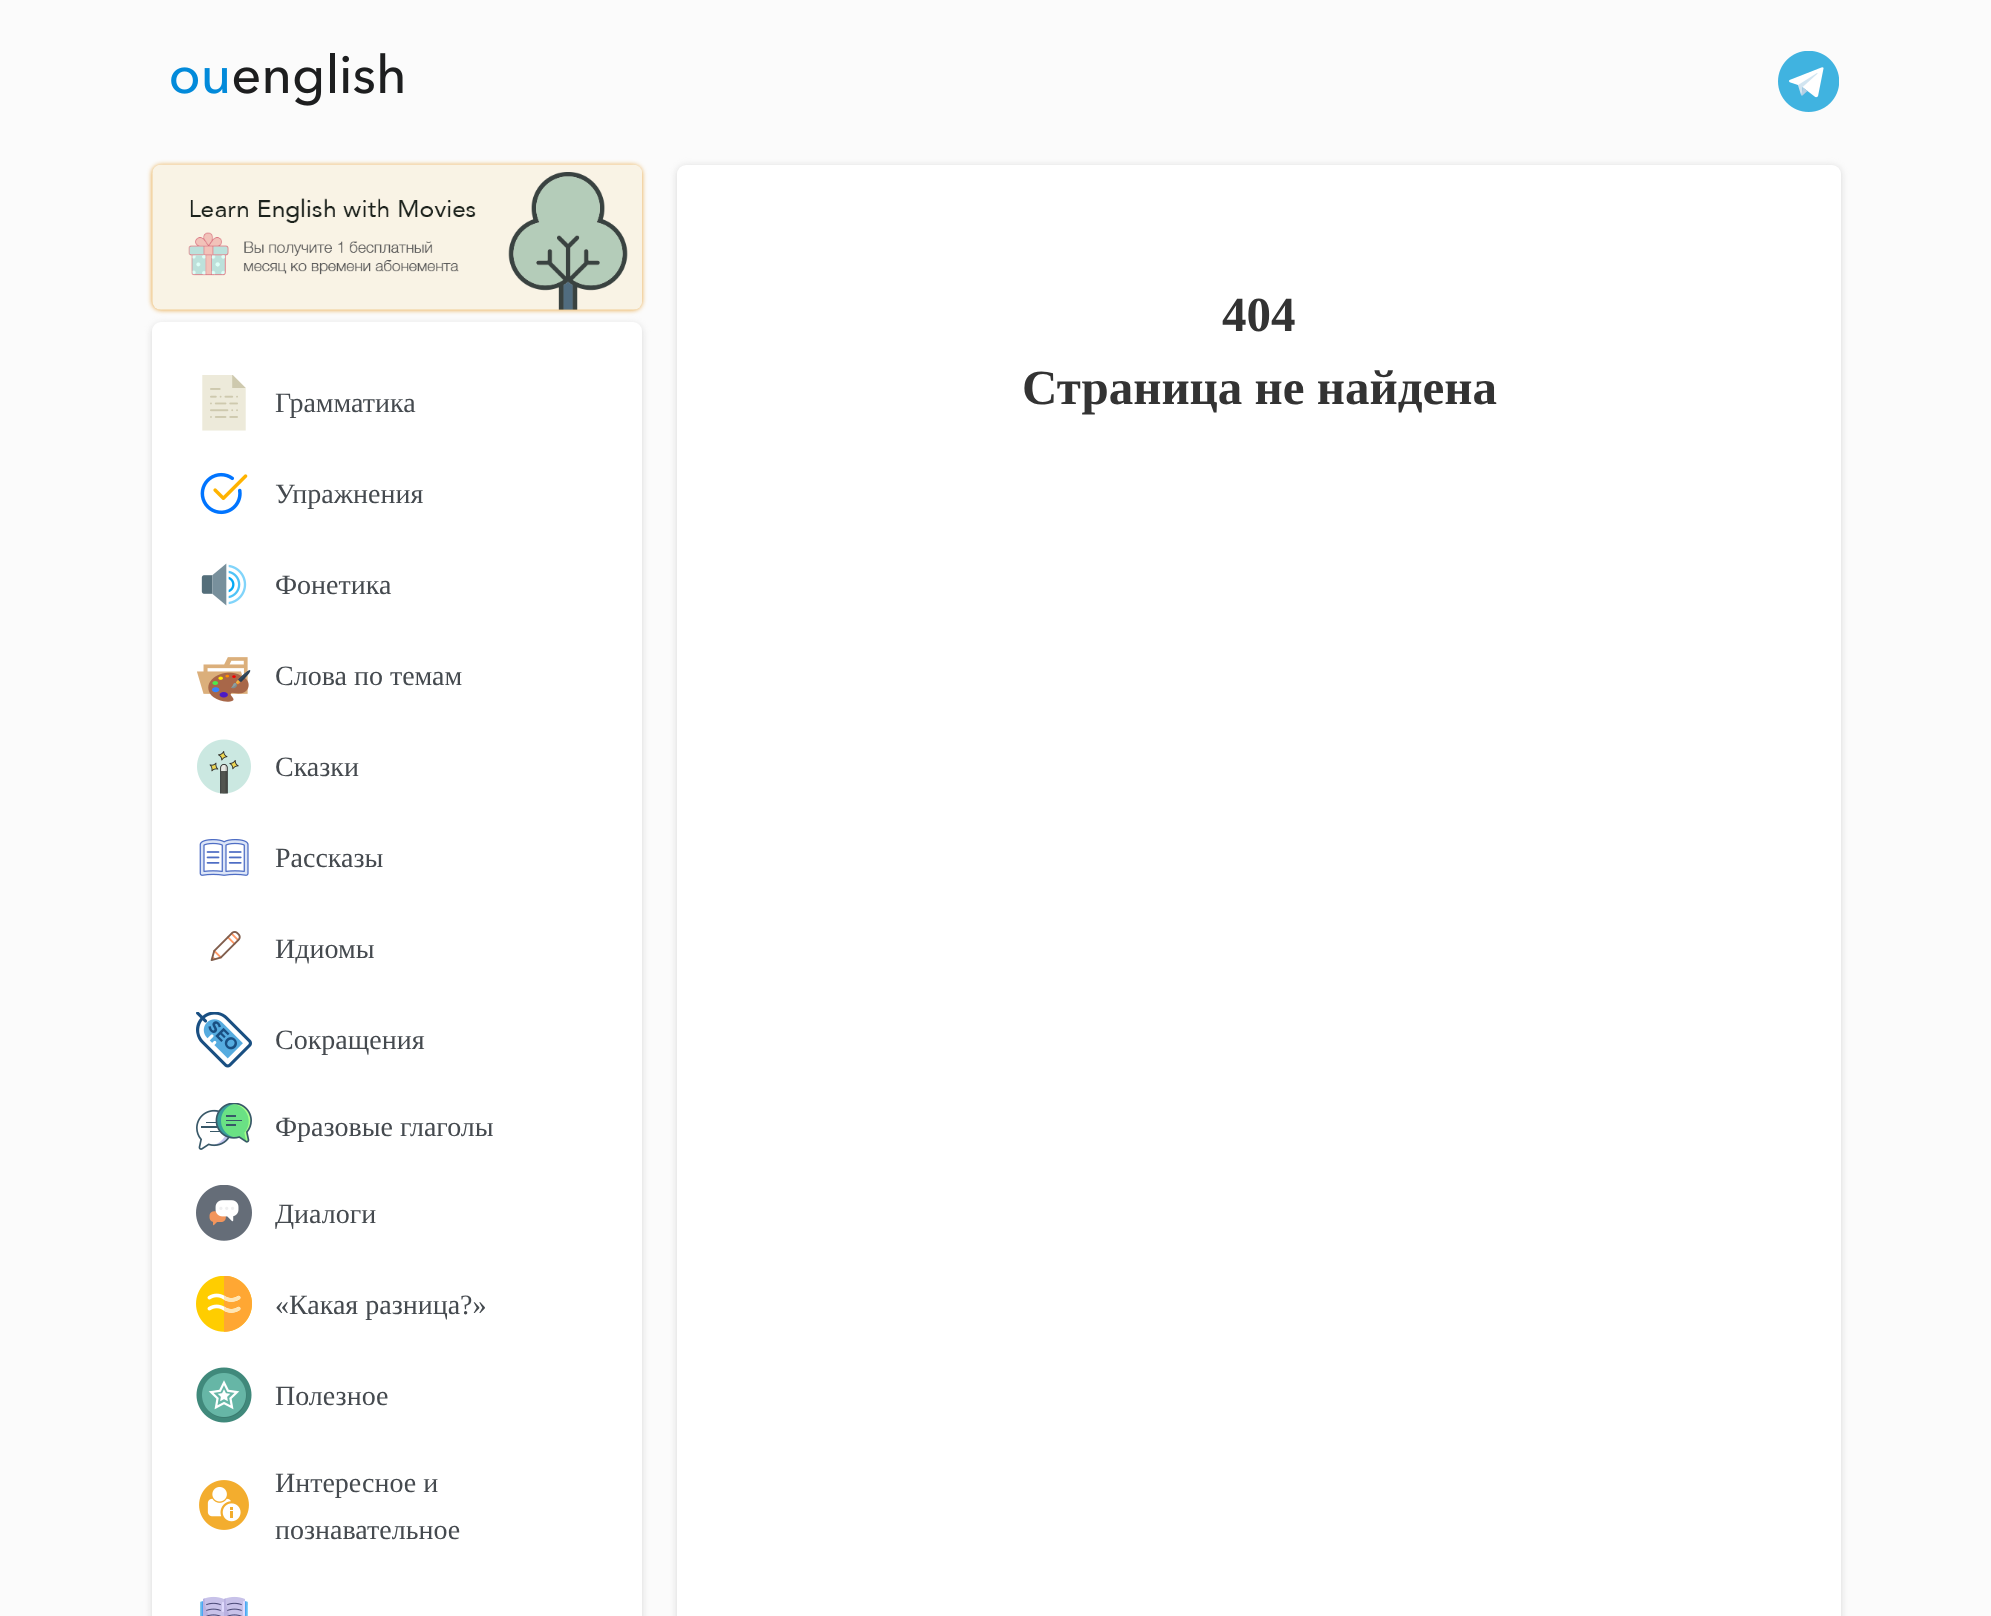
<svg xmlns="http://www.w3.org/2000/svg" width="1991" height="1616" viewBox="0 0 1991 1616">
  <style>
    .t1 { font: bold 49px Liberation Serif; fill: #333; }
    .t2 { font: 28px Liberation Serif; fill: #454a4f; }
  </style>
  <rect width="100%" height="100%" fill="#fbfbfb"/>
  <image x="171" y="53" width="232" height="53" href="images/1.png"/>
  <image x="1778" y="51" width="61" height="61" href="images/2.png"/>
  <rect x="677" y="166" width="1164" height="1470" rx="9" fill="#d8d8d8" filter="blur(3.5px)"/>
  <rect x="677" y="165" width="1164" height="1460" rx="9" fill="#fff"/>
  <text x="1222" y="331" class="t1">404</text>
  <text x="1022" y="404" class="t1">Страница не найдена</text>
  <rect x="152" y="165" width="490" height="145" rx="9" fill="#e6a136" filter="blur(2.5px)"/>
  <image x="152" y="164" width="490" height="146" href="images/3.png"/>
  <rect x="152" y="324" width="490" height="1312" rx="9" fill="#d8d8d8" filter="blur(3.5px)"/>
  <rect x="152" y="322" width="490" height="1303" rx="9" fill="#fff"/>
  <image x="202" y="375" width="44" height="56" href="images/4.png"/>
  <text x="275" y="412" class="t2">Грамматика</text>
  <image x="200" y="472" width="48" height="43" href="images/5.png"/>
  <text x="275" y="503" class="t2">Упражнения</text>
  <image x="201" y="563" width="46" height="43" href="images/6.png"/>
  <text x="275" y="594" class="t2">Фонетика</text>
  <image x="197" y="657" width="54" height="45" href="images/7.png"/>
  <text x="275" y="685" class="t2">Слова по темам</text>
  <image x="197" y="739" width="54" height="55" href="images/8.png"/>
  <text x="275" y="776" class="t2">Сказки</text>
  <image x="199" y="839" width="50" height="37" href="images/9.png"/>
  <text x="275" y="867" class="t2">Рассказы</text>
  <image x="210" y="931" width="31" height="30" href="images/10.png"/>
  <text x="275" y="958" class="t2">Идиомы</text>
  <image x="196" y="1012" width="56" height="56" href="images/11.png"/>
  <text x="275" y="1049" class="t2">Сокращения</text>
  <image x="196" y="1103" width="56" height="47" href="images/12.png"/>
  <text x="275" y="1136" class="t2">Фразовые глаголы</text>
  <image x="196" y="1185" width="56" height="56" href="images/13.png"/>
  <text x="275" y="1223" class="t2">Диалоги</text>
  <image x="196" y="1276" width="56" height="56" href="images/14.png"/>
  <text x="275" y="1314" class="t2">«Какая разница?»</text>
  <image x="196" y="1367" width="56" height="56" href="images/15.png"/>
  <text x="275" y="1405" class="t2">Полезное</text>
  <image x="199" y="1480" width="50" height="50" href="images/16.png"/>
  <text x="275" y="1492" class="t2">Интересное и</text>
  <text x="275" y="1539" class="t2">познавательное</text>
  <image x="200" y="1596" width="48" height="20" href="images/17.png"/>
</svg>
